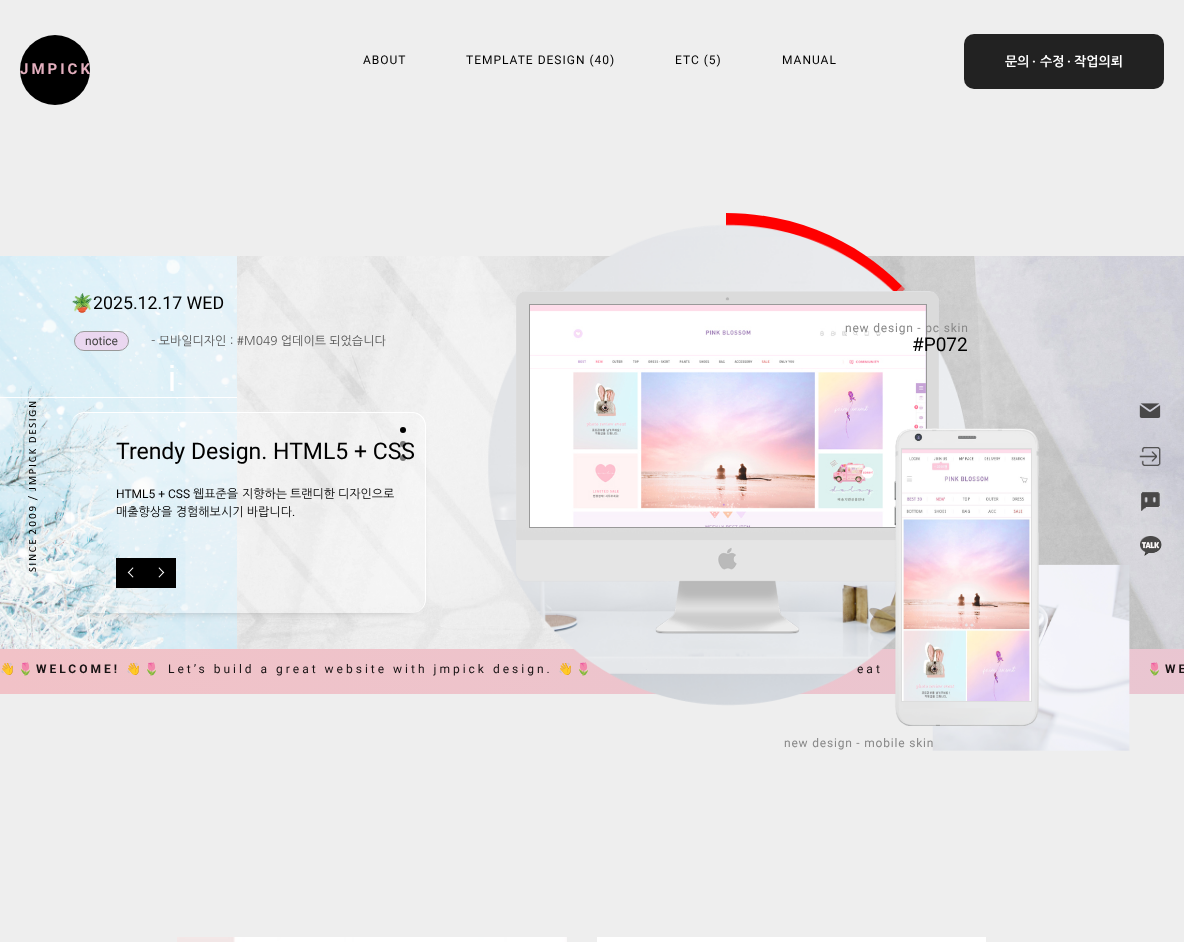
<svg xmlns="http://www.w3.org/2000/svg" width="1184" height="942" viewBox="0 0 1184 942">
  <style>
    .t1 { font: bold 15px Roboto; letter-spacing: 3px; fill: #e3afbe; }
    .t2 { font: 12px Roboto; letter-spacing: 1px; fill: #000; }
    .t3 { font: bold 13px NanumGothic; fill: #fff; }
    .t4 { font: bold 13px Roboto; fill: #fff; }
    .t5 { font: 17.75px Noto Color Emoji; fill: #000; }
    .t6 { font: 17.75px Roboto; fill: #000; }
    .t7 { font: 12px Roboto; fill: #444; }
    .t8 { font: 12px 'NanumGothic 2'; fill: #555; }
    .t9 { font: 23px Roboto; fill: #000; }
    .t10 { font: 12px Roboto; fill: #000; }
    .t11 { font: 12px NanumGothic; fill: #000; }
    .t12 { font: 12px Roboto; letter-spacing: 3px; fill: #181314; }
    .t13 { font: 12px Noto Color Emoji; letter-spacing: 3px; fill: #181314; }
    .t14 { font: 12px Roboto; letter-spacing: 0.8px; fill: #888; }
    .t15 { font: 19px Roboto; fill: #000; }
    .t16 { font: 36px Liberation Sans; fill: #fff; }
    .t17 { font: bold 12px Roboto; letter-spacing: 3px; fill: #181314; }
  </style>
  <defs>
    <clipPath id="clip1"><path d="M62 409H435V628H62ZM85 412H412C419.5 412 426 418.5 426 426V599C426 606.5 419.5 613 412 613H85C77.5 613 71 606.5 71 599V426C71 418.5 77.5 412 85 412Z" clip-rule="evenodd"/></clipPath>
    <linearGradient id="g1" gradientUnits="userSpaceOnUse" x1="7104" y1="784" x2="0" y2="784"><stop offset="0" stop-color="#bacce4"/><stop offset="0.5" stop-color="#dacee6"/><stop offset="1" stop-color="#f1c2c7"/></linearGradient>
  </defs>
  <rect width="100%" height="100%" fill="#eee"/>
  <circle cx="55" cy="70" r="35" fill="#000"/>
  <text x="20" y="74" class="t1">JMPICK</text>
  <text x="363" y="64" class="t2">ABOUT</text>
  <text x="466" y="64" class="t2">TEMPLATE DESIGN (40)</text>
  <text x="675" y="64" class="t2">ETC (5)</text>
  <text x="782" y="64" class="t2">MANUAL</text>
  <rect x="964" y="34" width="200" height="55" rx="10" fill="#222"/>
  <text x="1005" y="66" class="t3">문의</text>
  <text x="1032" y="66" class="t4">·</text>
  <text x="1040" y="66" class="t3">수정</text>
  <text x="1067" y="66" class="t4">·</text>
  <text x="1074" y="66" class="t3">작업의뢰</text>
  <image x="0" y="256" width="237" height="393" href="images/10.png"/>
  <text x="71" y="309" class="t5">🪴</text>
  <text x="93" y="309" class="t6">2025.12.17 WED</text>
  <image x="237" y="256" width="947" height="393" href="images/1.png"/>
  <rect x="74.5" y="331.5" width="54" height="19" rx="9.5" fill="#ead7f0" stroke="#999"/>
  <text x="85" y="345" class="t7">notice</text>
  <text x="151" y="345" class="t8">- 모바일디자인 : #M049 업데이트 되었습니다</text>
  <g clip-path="url(#clip1)">
    <rect x="86" y="433" width="325" height="171" fill="#000" filter="blur(7.5px)"/>
  </g>
  <path d="M85 413H412C419 413 425 419 425 426V599C425 607 419 613 412 613H85C77 613 71 607 71 599V426C71 419 77 413 85 413Z" fill="#ffffff40"/>
  <path d="M85 412H412C420 412 426 418 426 426V599C426 607 420 613 412 613H85C77 613 71 607 71 599V426C71 418 77 412 85 412ZM85 413H412C419 413 425 419 425 426V599C425 607 419 613 412 613H85C77 613 71 607 71 599V426C71 419 77 413 85 413Z" fill="#fff" fill-rule="evenodd"/>
  <circle cx="403" cy="430" r="3" fill="#000"/>
  <text x="116" y="459" class="t9">Trendy Design. HTML5 + CSS</text>
  <circle cx="403" cy="444" r="3" fill="#00000080"/>
  <circle cx="403" cy="458" r="3" fill="#00000080"/>
  <text x="116" y="498" class="t10">HTML5 + CSS</text>
  <text x="193" y="498" class="t11">웹표준을</text>
  <text x="242" y="498" class="t11">지향하는</text>
  <text x="290" y="498" class="t11">트랜디한</text>
  <text x="338" y="498" class="t11">디자인으로</text>
  <text x="116" y="516" class="t11">매출향상을 경험해보시기 바랍니다</text>
  <text x="292" y="516" class="t10">.</text>
  <image x="116" y="558" width="30" height="30" href="images/2.png"/>
  <image x="146" y="558" width="30" height="30" href="images/3.png"/>
  <path d="M726 462L902 286C856 239 792 213 726 213Z" fill="#f00"/>
  <path d="M726 462L905 289L902 286Z" fill="#ff000080"/>
  <rect x="0" y="649" width="1184" height="45" fill="url(#g1)"/>
  <image x="932" y="564" width="198" height="187" href="images/9.png"/>
  <text x="168" y="673" class="t12">Let’s build a great website with jmpick design.</text>
  <text x="558" y="673" class="t13">👋🌷</text>
  <text x="857" y="673" class="t12">eat</text>
  <image x="488" y="224" width="478" height="482" href="images/4.png"/>
  <image x="516" y="291" width="423" height="343" href="images/5.png"/>
  <rect x="529.5" y="304.5" width="397" height="223" fill="none" stroke="#999"/>
  <image x="530" y="305" width="396" height="222" href="images/6.png"/>
  <text x="845" y="332" class="t14">new design - pc skin</text>
  <text x="912" y="351" class="t15">#P072</text>
  <image x="894" y="428" width="145" height="298" href="images/7.png"/>
  <rect x="901.5" y="448.5" width="130" height="253" fill="none" stroke="#ddd"/>
  <image x="902" y="449" width="129" height="252" href="images/8.png"/>
  <text x="784" y="747" class="t14">new design - mobile skin</text>
  <rect x="0" y="397" width="237" height="1" fill="#fff"/>
  <text x="168" y="391" class="t16">i</text>
  <text x="0" y="673" class="t13">👋🌷</text>
  <text x="36" y="673" class="t17">WELCOME!</text>
  <text x="126" y="673" class="t13">👋🌷</text>
  <text x="1147" y="673" class="t13">🌷</text>
  <text x="1165" y="673" class="t17">WE</text>
  <image x="177" y="937" width="390" height="5" href="images/11.png"/>
  <rect x="597" y="937" width="389" height="5" fill="#fff"/>
  <image x="28" y="401" width="10" height="171" href="images/12.png"/>
  <image x="1139" y="403" width="22" height="15" href="images/13.png"/>
  <image x="1139" y="447" width="22" height="19" href="images/14.png"/>
  <image x="1141" y="492" width="19" height="19" href="images/15.png"/>
  <image x="1140" y="536" width="22" height="20" href="images/16.png"/>
</svg>
